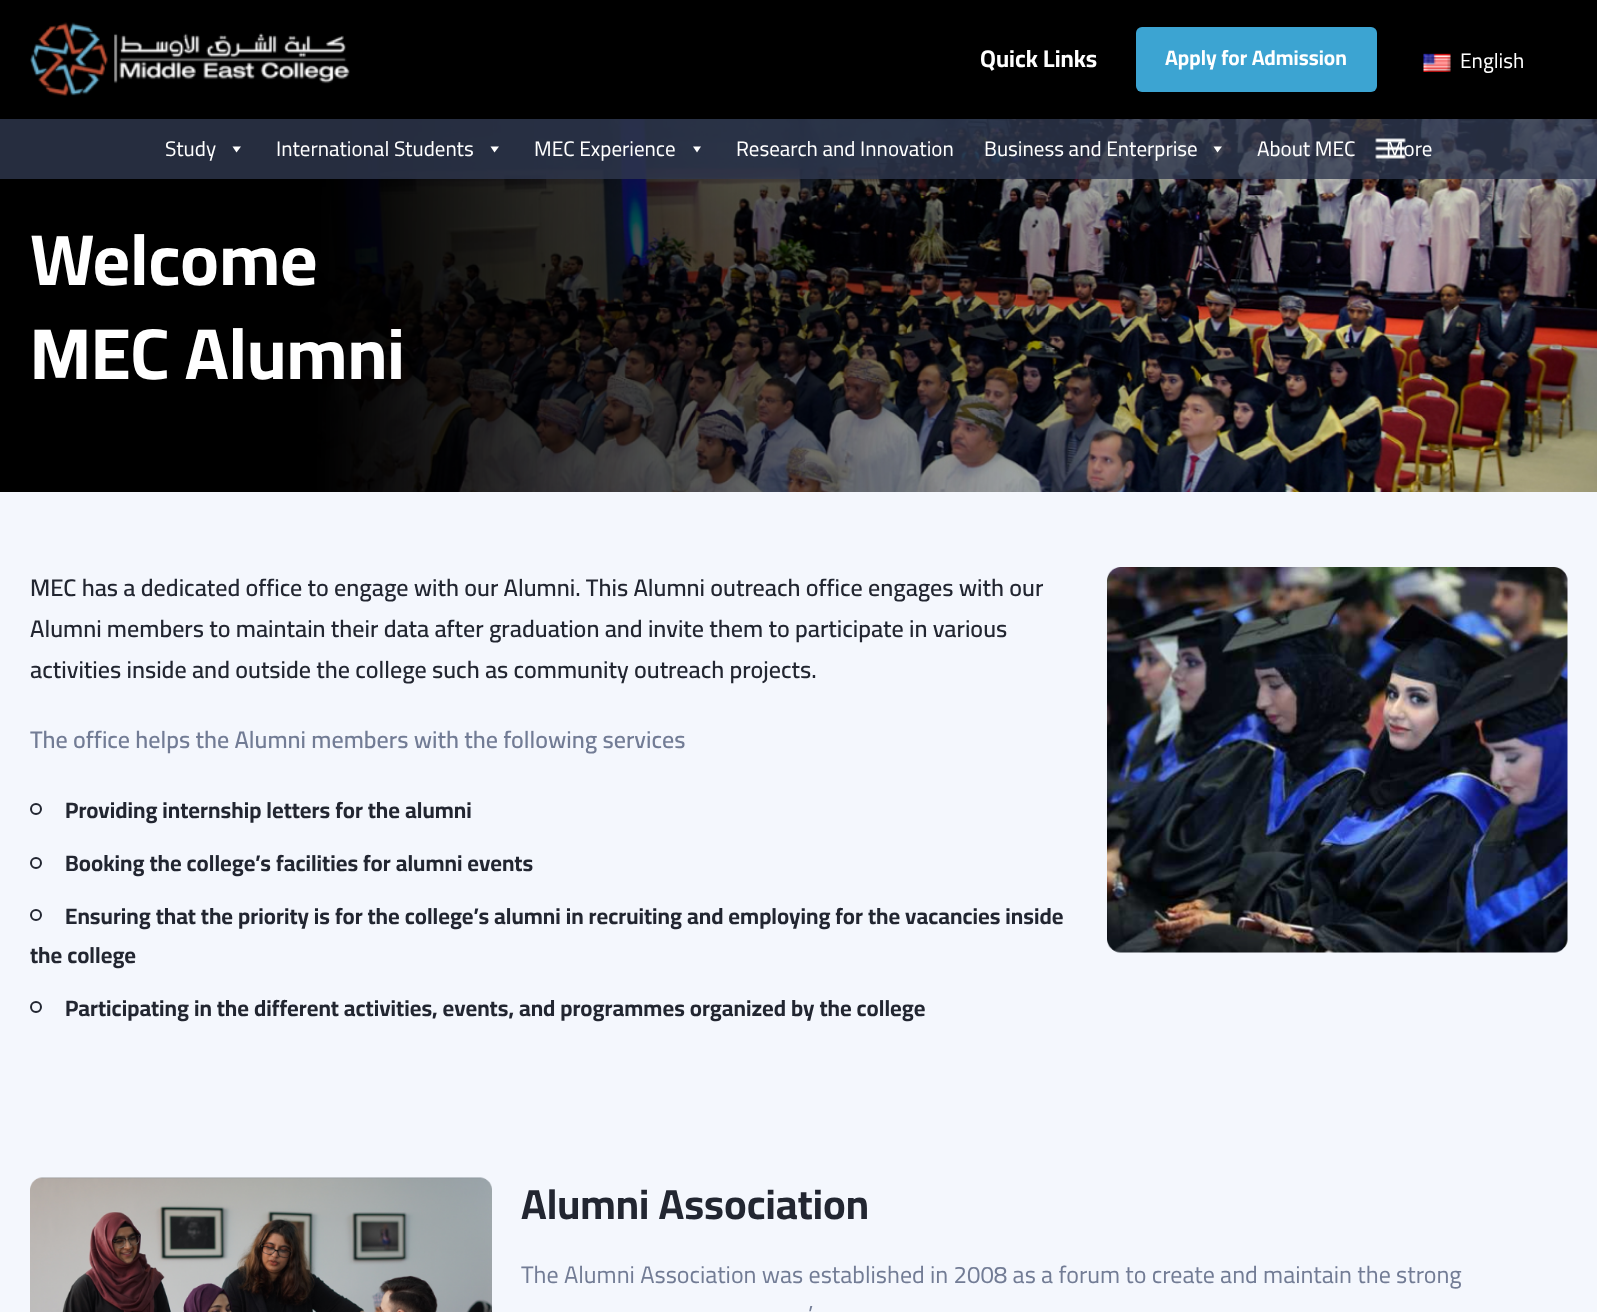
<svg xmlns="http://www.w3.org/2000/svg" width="1597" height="1312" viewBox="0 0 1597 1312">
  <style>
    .t1 { font: bold 24px Cairo; fill: #fff; }
    .t2 { font: bold 21px Cairo; fill: #fff; }
    .t3 { font: 21px Cairo; fill: #fff; }
    .t4 { font: bold 72px Cairo; fill: #fff; }
    .t5 { font: 600 24px Cairo; fill: #222631; }
    .t6 { font: 600 24px Cairo; fill: #727c95; }
    .t7 { font: bold 22.5px Cairo; fill: #222631; }
    .t8 { font: bold 42px Cairo; fill: #222631; }
    .t9 { font: 24px Cairo; fill: #727c95; }
  </style>
  <rect width="100%" height="100%" fill="#f4f7fd"/>
  <rect x="0" y="0" width="1597" height="119" fill="#000"/>
  <image x="30" y="22" width="320" height="74" href="images/1.png"/>
  <text x="980" y="67" class="t1">Quick Links</text>
  <rect x="1136" y="27" width="241" height="65" rx="6" fill="#3ca4d2"/>
  <text x="1165" y="65" class="t2">Apply for Admission</text>
  <image x="1423" y="53" width="28" height="19" href="images/2.png"/>
  <text x="1460" y="68" class="t3">English</text>
  <image x="0" y="119" width="1597" height="373" href="images/4.png"/>
  <rect x="0" y="119" width="1597" height="60" fill="#2f374ecf"/>
  <text x="165" y="156" class="t3">Study</text>
  <path d="M241 146.5L236.5 152.5L232.5 146.5Z" fill="#fff"/>
  <text x="276" y="156" class="t3">International Students</text>
  <path d="M499 146.5L494.5 152.5L490.5 146.5Z" fill="#fff"/>
  <text x="534" y="156" class="t3">MEC Experience</text>
  <path d="M701 146.5L697 152.5L693 146.5Z" fill="#fff"/>
  <text x="736" y="156" class="t3">Research and Innovation</text>
  <text x="984" y="156" class="t3">Business and Enterprise</text>
  <path d="M1222 146.5L1217.5 152.5L1213.5 146.5Z" fill="#fff"/>
  <text x="1257" y="156" class="t3">About MEC</text>
  <text x="1386" y="156" class="t3">More</text>
  <image x="1375" y="138" width="31" height="21" href="images/3.png"/>
  <text x="30" y="285" class="t4">Welcome</text>
  <text x="30" y="379" class="t4">MEC Alumni</text>
  <text x="30" y="596" class="t5">MEC has a dedicated office to engage with our Alumni. This Alumni outreach office engages with our</text>
  <text x="30" y="637" class="t5">Alumni members to maintain their data after graduation and invite them to participate in various</text>
  <text x="30" y="678" class="t5">activities inside and outside the college such as community outreach projects.</text>
  <text x="30" y="748" class="t6">The office helps the Alumni members with the following services</text>
  <circle cx="36" cy="809" r="5" fill="none" stroke="#222631" stroke-width="2"/>
  <text x="65" y="818" class="t7">Providing internship letters for the alumni</text>
  <circle cx="36" cy="863" r="5" fill="none" stroke="#222631" stroke-width="2"/>
  <text x="65" y="871" class="t7">Booking the college’s facilities for alumni events</text>
  <circle cx="36" cy="915" r="5" fill="none" stroke="#222631" stroke-width="2"/>
  <text x="65" y="924" class="t7">Ensuring that the priority is for the college’s alumni in recruiting and employing for the vacancies inside</text>
  <text x="30" y="963" class="t7">the college</text>
  <circle cx="36" cy="1007" r="5" fill="none" stroke="#222631" stroke-width="2"/>
  <text x="65" y="1016" class="t7">Participating in the different activities, events, and programmes organized by the college</text>
  <image x="1107" y="567" width="461" height="386" href="images/5.png"/>
  <image x="30" y="1177" width="462" height="135" href="images/6.png"/>
  <text x="521" y="1219" class="t8">Alumni Association</text>
  <text x="521" y="1283" class="t9">The Alumni Association was established in 2008 as a forum to create and maintain the strong</text>
  <text x="808" y="1323" class="t9">’</text>
</svg>
